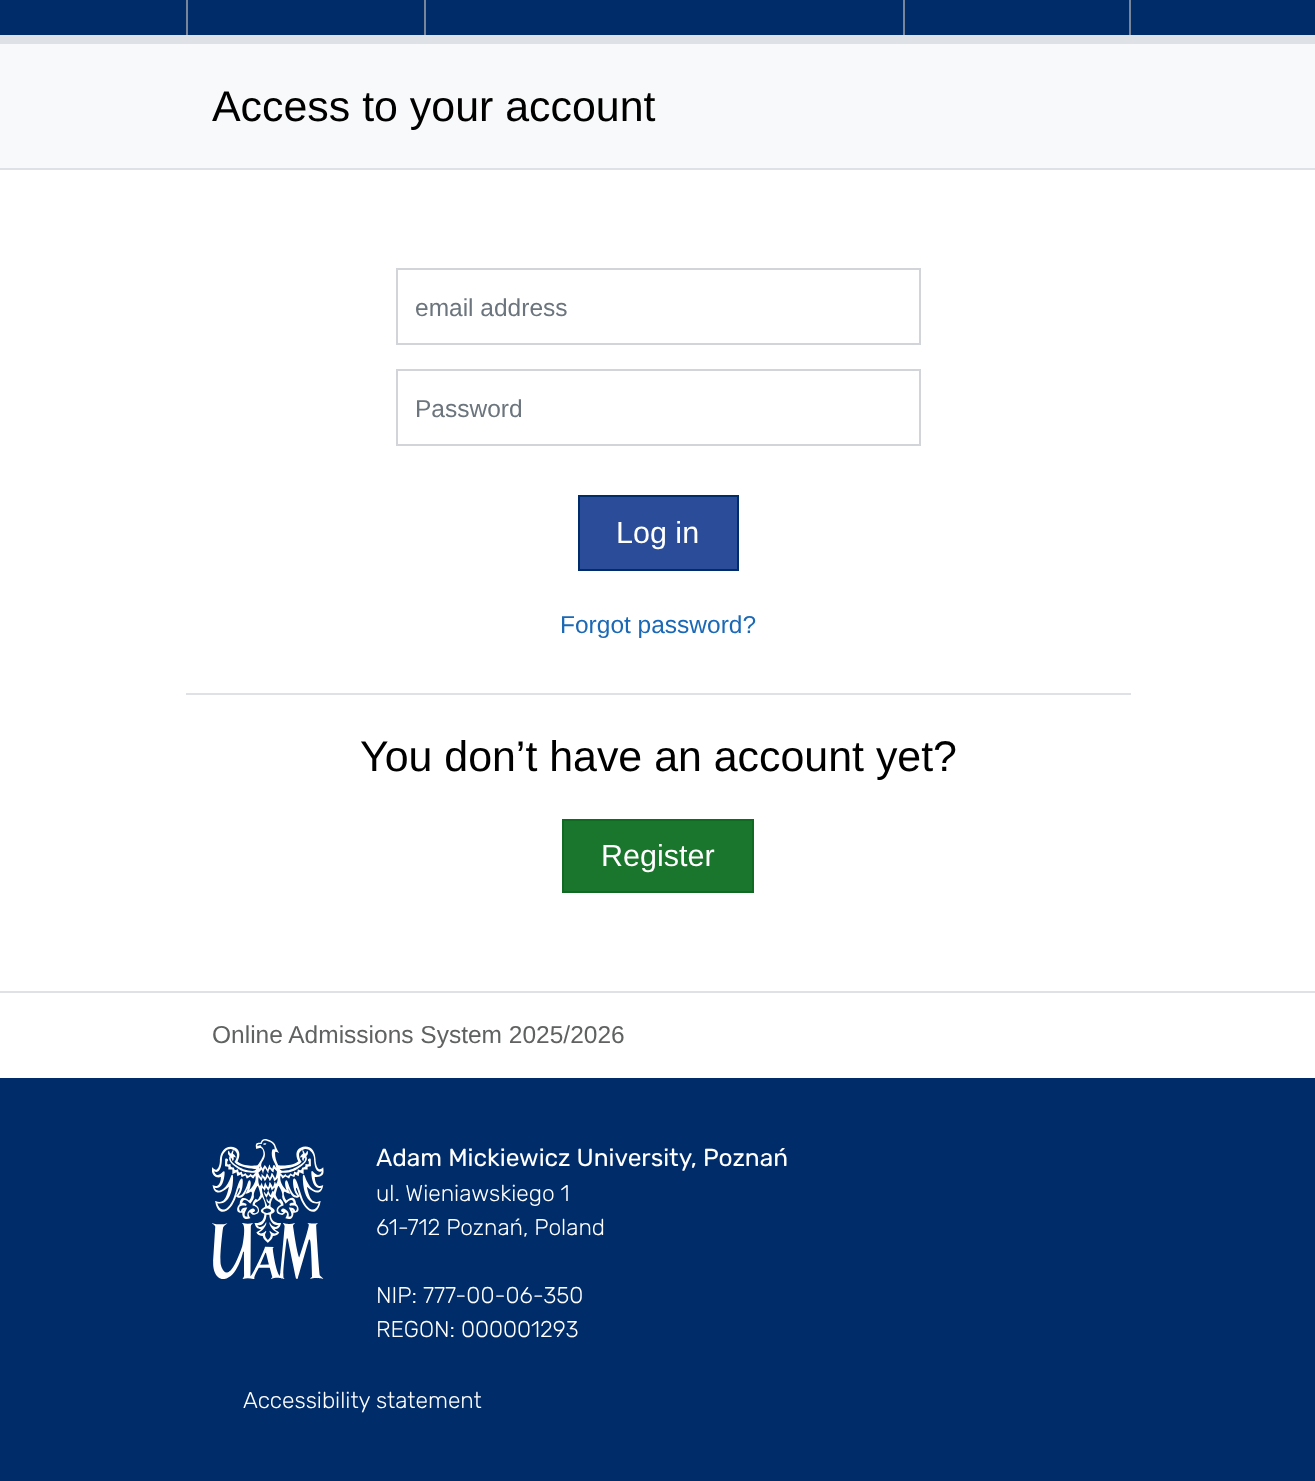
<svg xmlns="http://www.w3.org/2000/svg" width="1315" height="1481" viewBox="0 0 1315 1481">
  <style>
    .t1 { font: 42.9px Liberation Sans; fill: #000; }
    .t2 { font: 24.5px Liberation Sans; fill: #6c757d; }
    .t3 { font: 30.5px Liberation Sans; fill: #fff; }
    .t4 { font: 24.5px Liberation Sans; fill: #1b69b6; }
    .t5 { font: 24.5px Liberation Sans; fill: #606262; }
    .t6 { font: 24.5px Rubik; fill: #fff; }
    .t7 { font: 300 22.75px Rubik; fill: #fff; }
  </style>
  <rect width="100%" height="100%" fill="#fff"/>
  <rect x="0" y="0" width="1315" height="35" fill="#002d69"/>
  <rect x="0" y="35" width="1315" height="9" fill="#dee2e6"/>
  <rect x="424" y="0" width="2" height="35" fill="#788497"/>
  <rect x="186" y="0" width="2" height="35" fill="#788497"/>
  <rect x="1129" y="0" width="2" height="35" fill="#788497"/>
  <rect x="903" y="0" width="2" height="35" fill="#788497"/>
  <rect x="0" y="44" width="1315" height="124" fill="#f8f9fa"/>
  <rect x="0" y="168" width="1315" height="2" fill="#dee2e6"/>
  <text x="212" y="121" class="t1">Access to your account</text>
  <rect x="186" y="693" width="945" height="2" fill="#dee2e6"/>
  <rect x="397" y="269" width="523" height="75" fill="none" stroke="#d1d5da" stroke-width="2"/>
  <text x="415" y="316" class="t2">email address</text>
  <rect x="397" y="370" width="523" height="75" fill="none" stroke="#d1d5da" stroke-width="2"/>
  <text x="415" y="417" class="t2">Password</text>
  <rect x="579" y="496" width="159" height="74" fill="#2b4d99" stroke="#002d69" stroke-width="2"/>
  <text x="616" y="543" class="t3">Log in</text>
  <text x="560" y="633" class="t4">Forgot password?</text>
  <text x="360" y="771" class="t1">You don’t have an account yet?</text>
  <rect x="563" y="820" width="190" height="72" fill="#1a762c" stroke="#106a22" stroke-width="2"/>
  <text x="601" y="866" class="t3">Register</text>
  <rect x="0" y="991" width="1315" height="2" fill="#dee2e6"/>
  <text x="212" y="1043" class="t5">Online Admissions System 2025/2026</text>
  <rect x="0" y="1078" width="1315" height="403" fill="#002d69"/>
  <image x="212" y="1139" width="112" height="140" href="images/1.png"/>
  <text x="376" y="1166" class="t6">Adam Mickiewicz University, Poznań</text>
  <text x="376" y="1201" class="t7">ul. Wieniawskiego 1</text>
  <text x="376" y="1235" class="t7">61-712 Poznań, Poland</text>
  <text x="376" y="1303" class="t7">NIP: 777-00-06-350</text>
  <text x="376" y="1337" class="t7">REGON: 000001293</text>
  <text x="243" y="1408" class="t7">Accessibility statement</text>
</svg>
